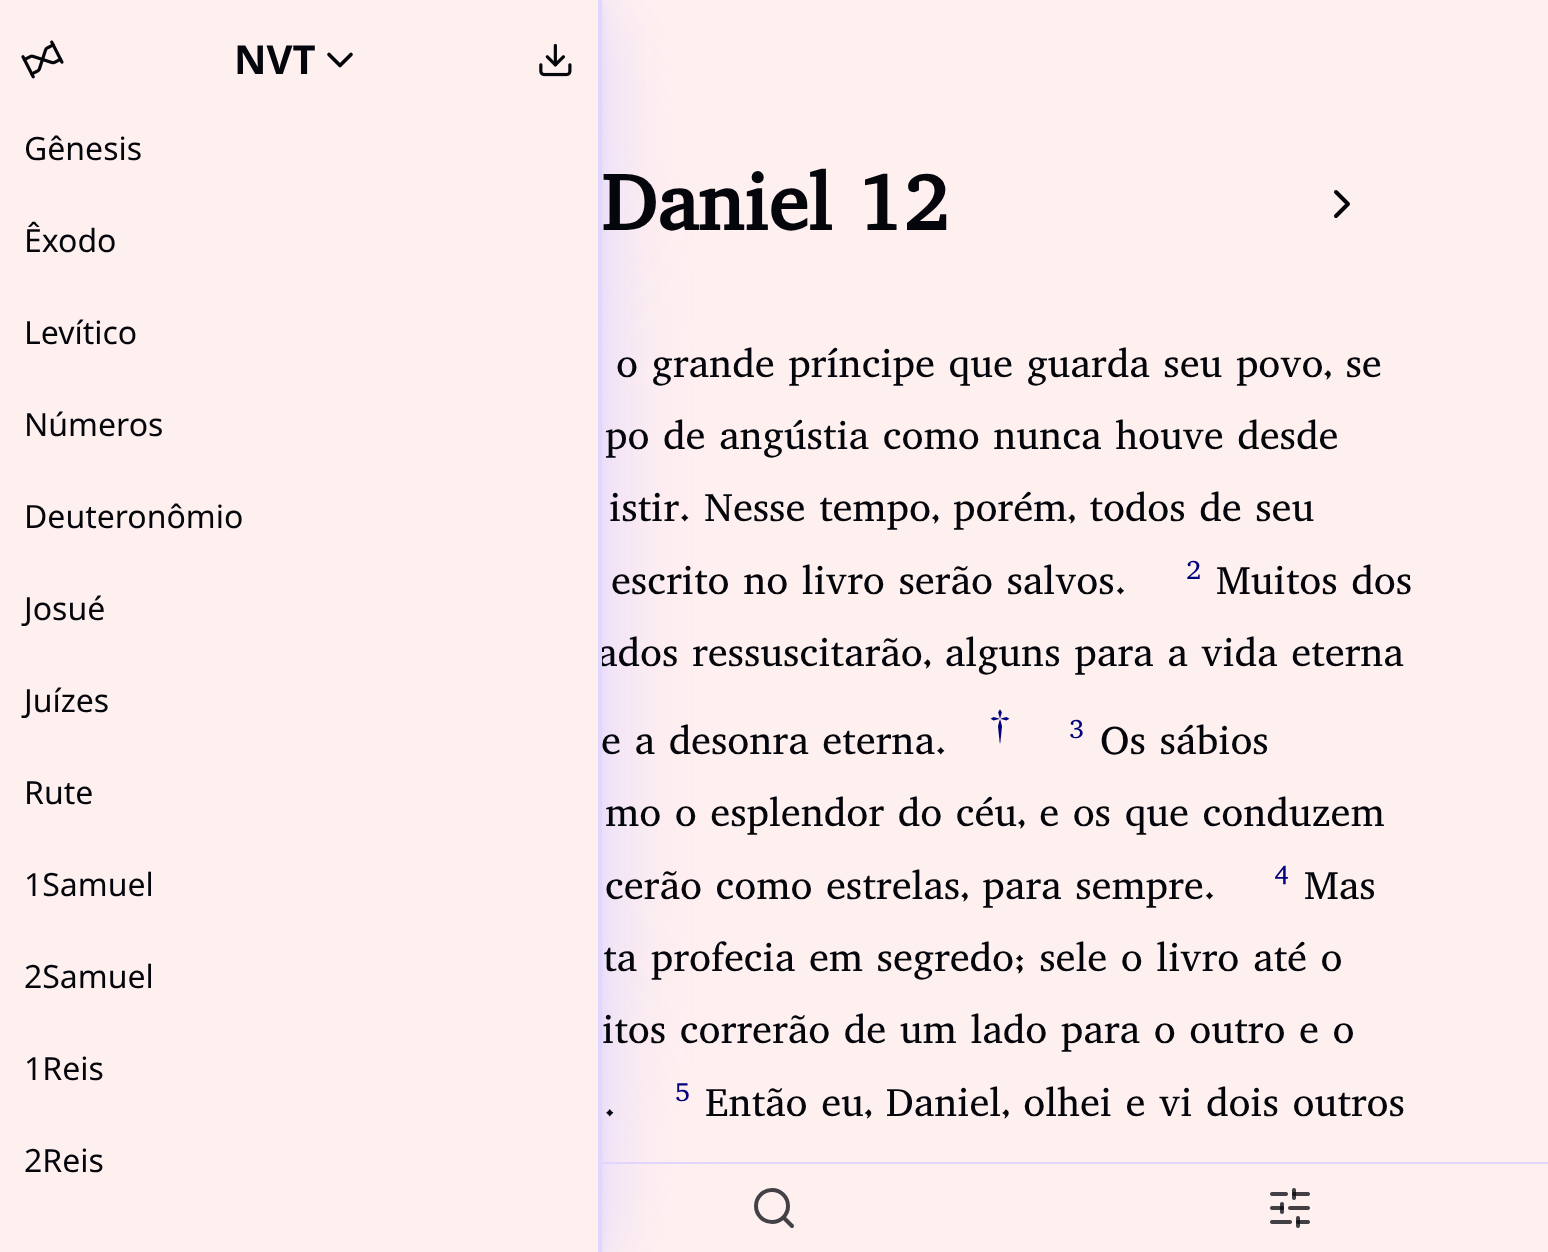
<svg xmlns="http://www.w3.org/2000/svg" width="1548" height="1252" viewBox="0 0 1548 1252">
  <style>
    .t1 { font: 40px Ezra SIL; fill: #04060c; }
    .t2 { font: bold 40px Noto Sans; fill: #04060c; }
    .t3 { font: 32px Noto Sans; fill: #04060c; }
    .t4 { font: bold 80px Ezra SIL; fill: #04060c; }
    .t5 { font: 27px Ezra SIL; fill: #00007a; }
    .t6 { font: 40px Ezra SIL; fill: #00007a; }
  </style>
  <rect width="100%" height="100%" fill="#fff0f0"/>
  <rect x="602" y="1162" width="946" height="2" fill="#e1d6ff"/>
  <path d="M792 1226L783.5 1217.5" fill="none" stroke="#434145" stroke-width="4" stroke-linecap="round" stroke-linejoin="round"/>
  <circle cx="772" cy="1206" r="16" fill="none" stroke="#434145" stroke-width="4"/>
  <rect x="128" y="146" width="344" height="996" fill="#e1d6ff" filter="blur(128px)"/>
  <rect x="0" y="6" width="600" height="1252" fill="#e1d6ff" filter="blur(36px)"/>
  <rect x="0" y="2" width="600" height="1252" fill="#e1d6ff" filter="blur(6px)"/>
  <text x="597" y="666" class="t1">ados ressuscitarão, alguns para a vida eterna</text>
  <rect x="-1" y="-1" width="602" height="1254" fill="none" stroke="#e1d6ff" stroke-width="2"/>
  <rect x="0" y="0" width="598" height="1252" fill="#fff0f0"/>
  <rect x="598" y="0" width="2" height="1252" fill="#e1d6ff"/>
  <image x="21" y="40" width="43" height="39" href="images/1.png"/>
  <text x="234" y="74" class="t2">NVT</text>
  <path d="M329 54.5L340 65.5L351 54.5" fill="none" stroke="#04060c" stroke-width="3.7" stroke-linecap="round" stroke-linejoin="round"/>
  <image x="539" y="43" width="33" height="34" href="images/2.png"/>
  <text x="24" y="160" class="t3">Gênesis</text>
  <text x="24" y="252" class="t3">Êxodo</text>
  <text x="24" y="344" class="t3">Levítico</text>
  <text x="24" y="436" class="t3">Números</text>
  <text x="24" y="528" class="t3">Deuteronômio</text>
  <text x="24" y="620" class="t3">Josué</text>
  <text x="24" y="712" class="t3">Juízes</text>
  <text x="24" y="804" class="t3">Rute</text>
  <text x="24" y="896" class="t3">1Samuel</text>
  <text x="24" y="988" class="t3">2Samuel</text>
  <text x="24" y="1080" class="t3">1Reis</text>
  <text x="24" y="1172" class="t3">2Reis</text>
  <text x="601" y="230" class="t4">Daniel 12</text>
  <path d="M1336 216L1348 204L1336 192" fill="none" stroke="#04060c" stroke-width="4" stroke-linecap="round" stroke-linejoin="round"/>
  <text x="616" y="377" class="t1">o grande príncipe que guarda seu povo, se</text>
  <text x="605" y="449" class="t1">po de angústia como nunca houve desde</text>
  <text x="609" y="521" class="t1">istir. Nesse tempo, porém, todos de seu</text>
  <text x="611" y="594" class="t1">escrito no livro serão salvos.</text>
  <text x="1186" y="579" class="t5">2</text>
  <text x="1216" y="594" class="t1">Muitos dos</text>
  <text x="601" y="754" class="t1">e a desonra eterna.</text>
  <text x="990" y="738" class="t6">†</text>
  <text x="1069" y="738" class="t5">3</text>
  <text x="1100" y="754" class="t1">Os sábios</text>
  <text x="605" y="826" class="t1">mo o esplendor do céu, e os que conduzem</text>
  <text x="605" y="899" class="t1">cerão como estrelas, para sempre.</text>
  <text x="1274" y="884" class="t5">4</text>
  <text x="1304" y="899" class="t1">Mas</text>
  <text x="603" y="971" class="t1">ta profecia em segredo; sele o livro até o</text>
  <text x="602" y="1043" class="t1">itos correrão de um lado para o outro e o</text>
  <text x="604" y="1116" class="t1">.</text>
  <text x="675" y="1101" class="t5">5</text>
  <text x="705" y="1116" class="t1">Então eu, Daniel, olhei e vi dois outros</text>
  <image x="1270" y="1188" width="40" height="40" href="images/3.png"/>
</svg>
